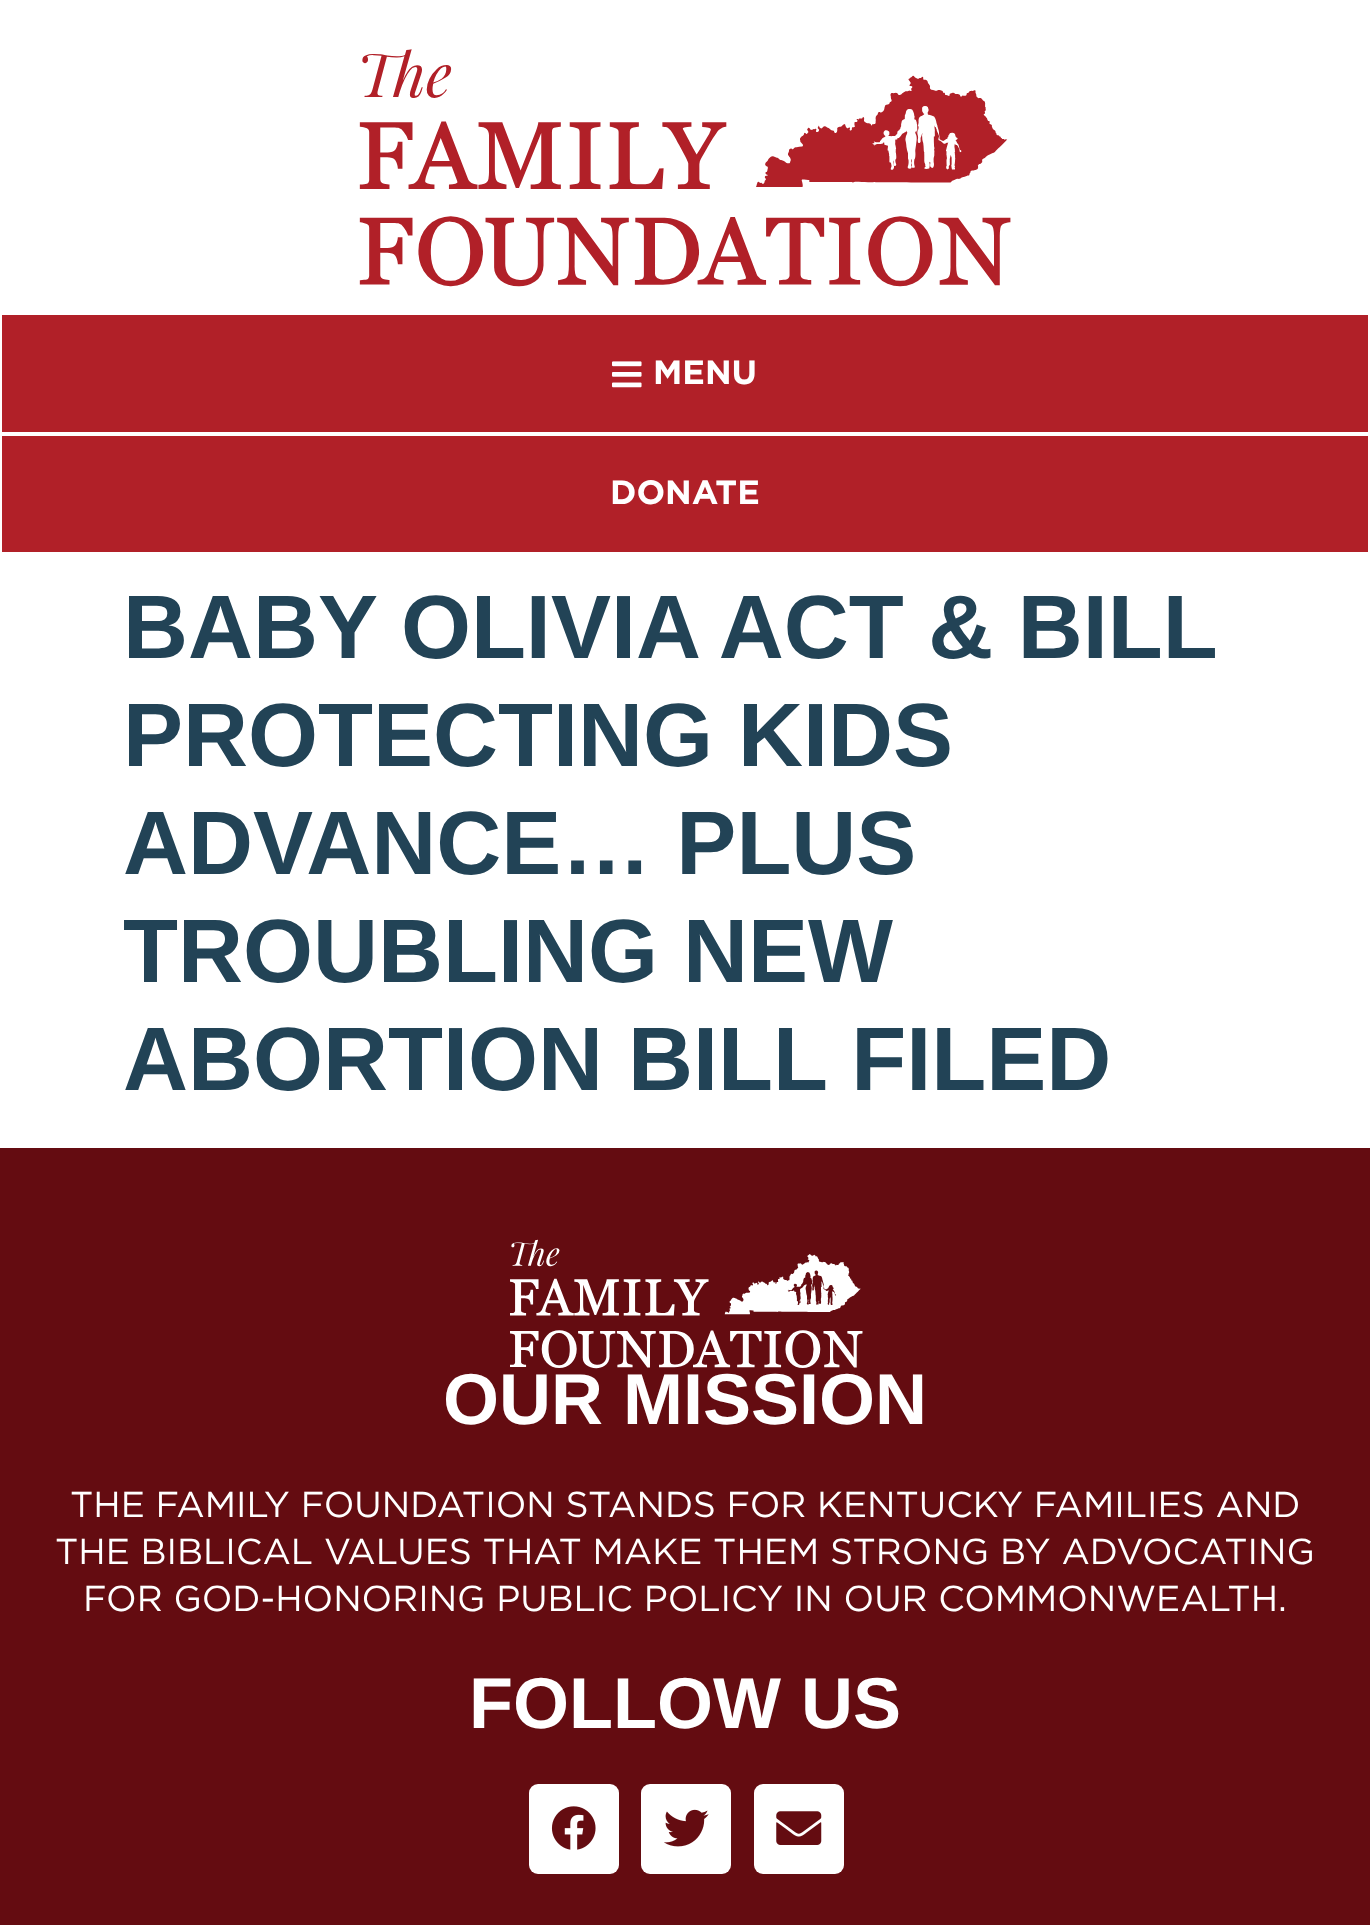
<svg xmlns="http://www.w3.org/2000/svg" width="1370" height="1925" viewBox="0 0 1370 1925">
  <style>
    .t1 { font: bold 33.75px Gotham; fill: #fff; }
    .t2 { font: bold 90px Liberation Sans; fill: #224356; }
    .t3 { font: bold 72px Liberation Sans; fill: #fff; }
    .t4 { font: 36px Gotham; fill: #fff; }
  </style>
  <rect width="100%" height="100%" fill="#fff"/>
  <image x="359" y="49" width="652" height="238" href="images/1.png"/>
  <rect x="2" y="315" width="1366" height="117" fill="#b12028"/>
  <image x="612" y="361" width="30" height="27" href="images/2.png"/>
  <text x="653" y="384" class="t1">MENU</text>
  <rect x="2" y="436" width="1366" height="116" fill="#b12028"/>
  <text x="610" y="504" class="t1">DONATE</text>
  <text x="123" y="658" word-spacing="-0.5" class="t2">BABY OLIVIA ACT &amp; BILL</text>
  <text x="123" y="766" class="t2">PROTECTING KIDS</text>
  <text x="123" y="874" class="t2">ADVANCE… PLUS</text>
  <text x="123" y="982" class="t2">TROUBLING NEW</text>
  <text x="123" y="1090" class="t2">ABORTION BILL FILED</text>
  <rect x="0" y="1148" width="1370" height="777" fill="#640c11"/>
  <image x="510" y="1239" width="353" height="130" href="images/3.png"/>
  <text x="443" y="1424" class="t3">OUR MISSION</text>
  <text x="70" y="1517" class="t4">THE FAMILY FOUNDATION STANDS FOR KENTUCKY FAMILIES AND</text>
  <text x="55" y="1564" class="t4">THE BIBLICAL VALUES THAT MAKE THEM STRONG BY ADVOCATING</text>
  <text x="83" y="1611" class="t4">FOR GOD-HONORING PUBLIC POLICY IN OUR COMMONWEALTH.</text>
  <text x="469" y="1728" class="t3">FOLLOW US</text>
  <rect x="529" y="1784" width="90" height="90" rx="9" fill="#fff"/>
  <image x="551" y="1806" width="45" height="44" href="images/4.png"/>
  <rect x="641" y="1784" width="90" height="90" rx="9" fill="#fff"/>
  <image x="664" y="1809" width="45" height="38" href="images/5.png"/>
  <rect x="754" y="1784" width="90" height="90" rx="9" fill="#fff"/>
  <image x="776" y="1811" width="46" height="34" href="images/6.png"/>
</svg>
